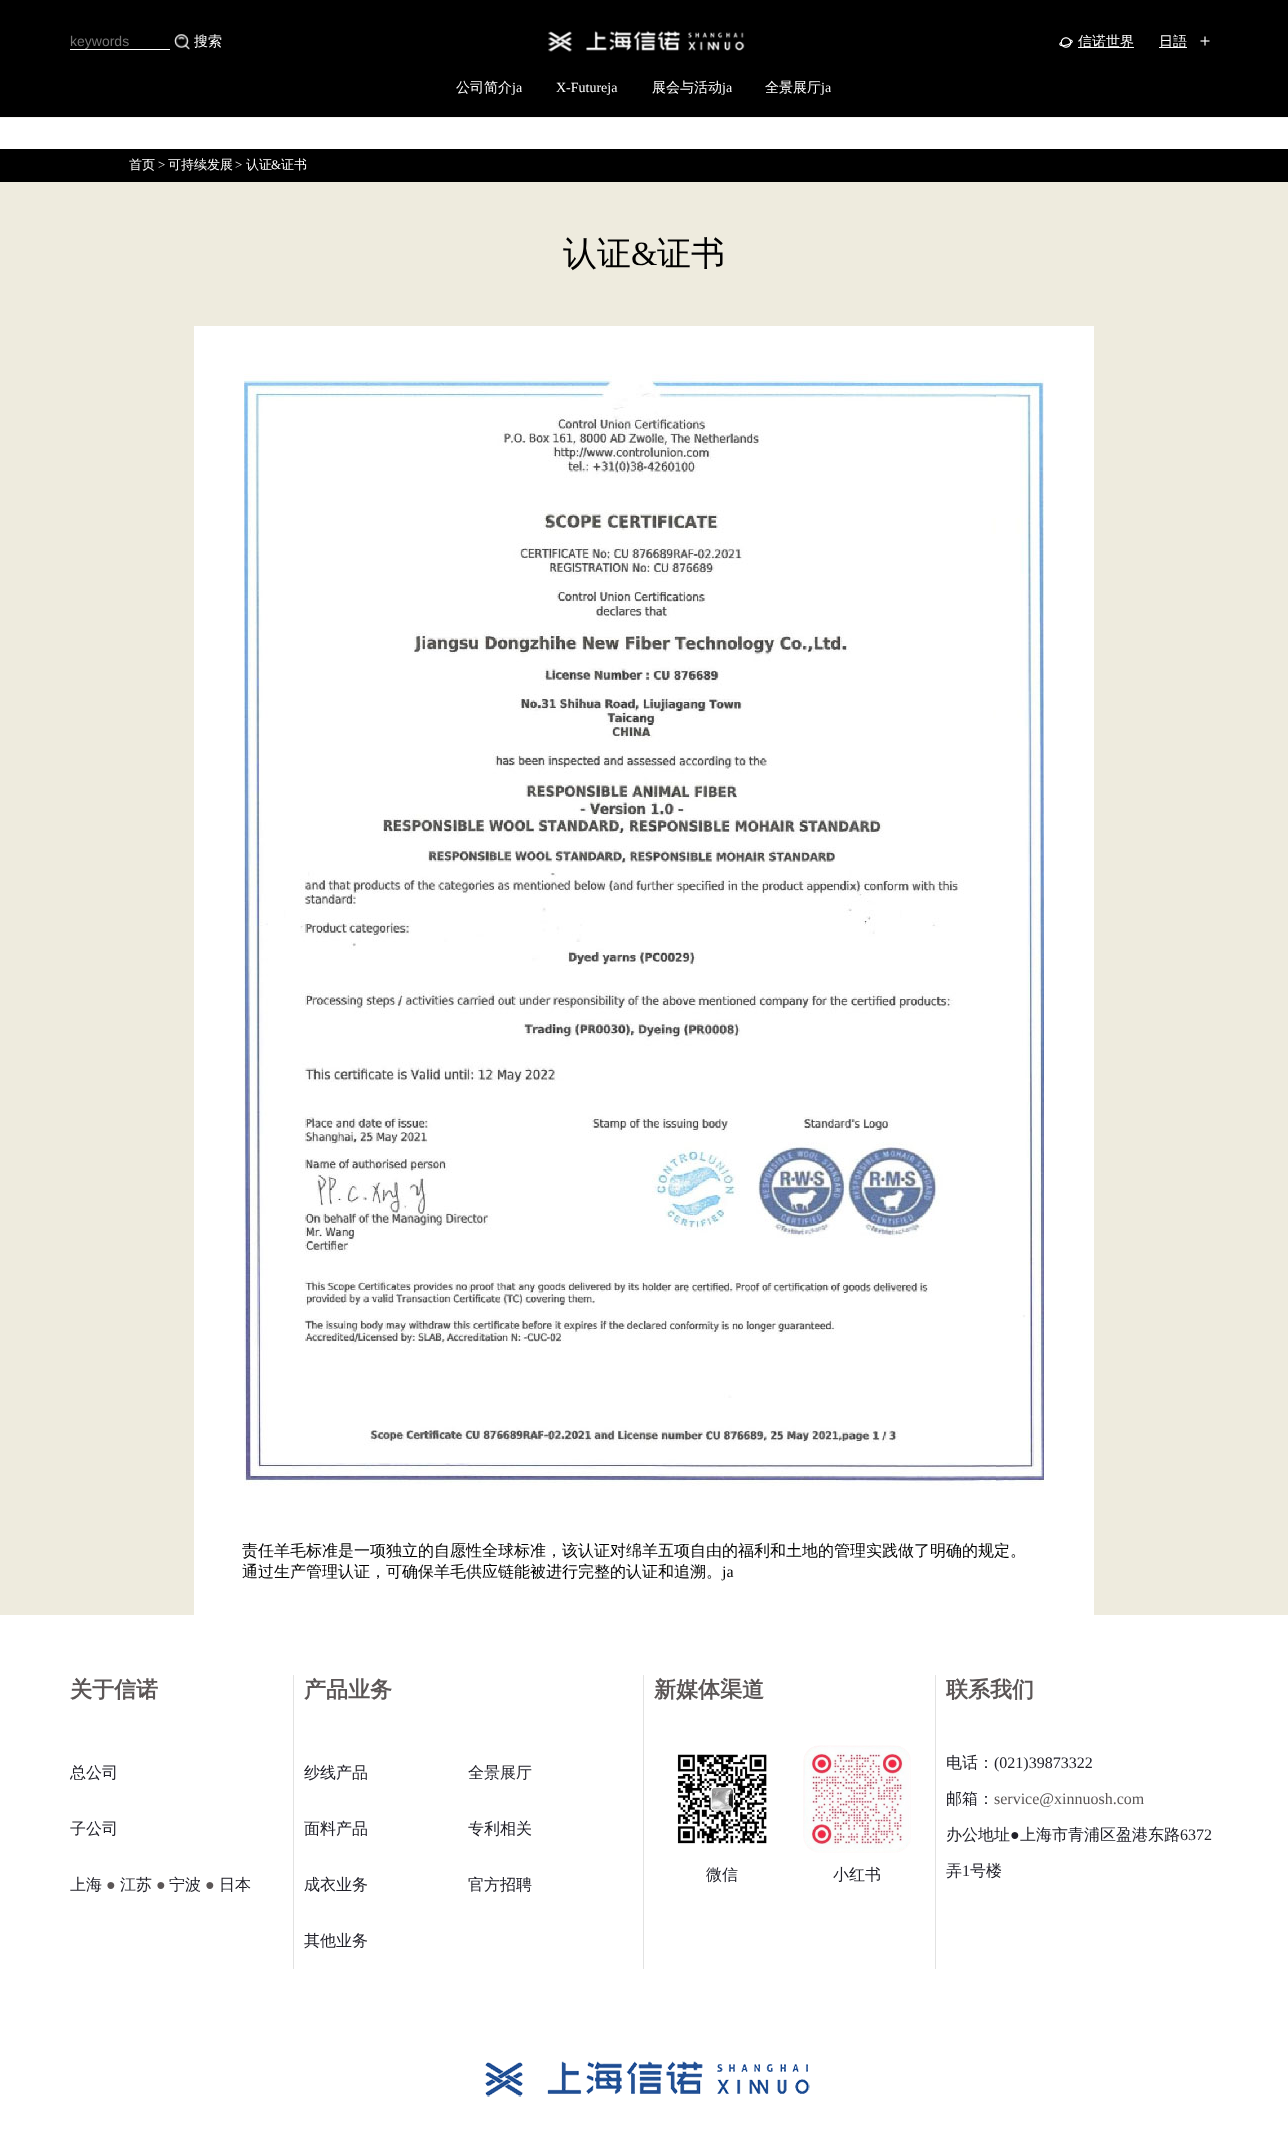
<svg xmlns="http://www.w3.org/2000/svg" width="1288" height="2129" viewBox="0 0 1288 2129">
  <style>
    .t1 { font: 14px Liberation Sans; fill: #757575; }
    .t2 { font: 500 14px WenQuanYi Zen Hei; fill: #fff; }
    .t3 { font: 14px Liberation Serif; fill: #fff; }
    .t4 { font: 500 13px WenQuanYi Zen Hei; fill: #fff; }
    .t5 { font: 13px Liberation Serif; fill: #fff; }
    .t6 { font: 500 34px WenQuanYi Zen Hei; fill: #000; }
    .t7 { font: 34px Liberation Serif; fill: #000; }
    .t8 { font: 500 16px WenQuanYi Zen Hei; fill: #000; }
    .t9 { font: 16px Liberation Serif; fill: #000; }
    .t10 { font: bold 22px WenQuanYi Zen Hei; fill: #5b5656; }
    .t11 { font: 500 16px WenQuanYi Zen Hei; fill: #202029; }
    .t12 { font: 16px Liberation Serif; fill: #5b5656; }
    .t13 { font: 16px Liberation Serif; fill: #202029; }
  </style>
  <rect width="100%" height="100%" fill="#fff"/>
  <rect x="0" y="0" width="1288" height="117" fill="#000"/>
  <rect x="0" y="117" width="1288" height="1" fill="#f4f3f1"/>
  <rect x="70" y="49" width="100" height="1" fill="#fff"/>
  <text x="70" y="46" class="t1">keywords</text>
  <image x="174" y="34" width="16" height="16" href="images/1.png"/>
  <text x="194" y="46" class="t2">搜索</text>
  <image x="548" y="30" width="197" height="22" href="images/2.png"/>
  <image x="1059" y="37" width="14" height="11" href="images/3.png"/>
  <rect x="1078" y="47" width="56" height="1" fill="#fff"/>
  <text x="1078" y="46" class="t2">信诺世界</text>
  <rect x="1159" y="47" width="28" height="1" fill="#fff"/>
  <text x="1159" y="46" class="t2">日語</text>
  <image x="1200" y="36" width="10" height="10" href="images/4.png"/>
  <text x="456" y="92" class="t2">公司简介</text>
  <text x="512" y="92" class="t3">ja</text>
  <text x="556" y="92" class="t3">X-Futureja</text>
  <text x="652" y="92" class="t2">展会与活动</text>
  <text x="722" y="92" class="t3">ja</text>
  <text x="765" y="92" class="t2">全景展厅</text>
  <text x="821" y="92" class="t3">ja</text>
  <rect x="0" y="149" width="1288" height="33" fill="#000"/>
  <text x="129" y="169" class="t4">首页</text>
  <text x="158" y="169" class="t5">&gt;</text>
  <text x="168" y="169" class="t4">可持续发展</text>
  <text x="235" y="169" class="t5">&gt;</text>
  <text x="246" y="169" class="t4">认证</text>
  <text x="271" y="169" class="t5">&amp;</text>
  <text x="281" y="169" class="t4">证书</text>
  <rect x="0" y="182" width="1288" height="1433" fill="#eeebde"/>
  <text x="563" y="265" class="t6">认证</text>
  <text x="631" y="265" class="t7">&amp;</text>
  <text x="657" y="265" class="t6">证书</text>
  <rect x="194" y="326" width="900" height="1289" fill="#fff"/>
  <image x="244" y="374" width="800" height="1112" href="images/5.png"/>
  <text x="242" y="1556" class="t8">责任羊毛标准是一项独立的自愿性全球标准，该认证对绵羊五项自由的福利和土地的管理实践做了明确的规定。</text>
  <text x="242" y="1577" class="t8">通过生产管理认证，可确保羊毛供应链能被进行完整的认证和追溯。</text>
  <text x="722" y="1577" class="t9">ja</text>
  <rect x="293" y="1675" width="1" height="294" fill="#e2e2e2"/>
  <text x="70" y="1697" class="t10">关于信诺</text>
  <text x="70" y="1778" class="t11">总公司</text>
  <text x="70" y="1834" class="t11">子公司</text>
  <text x="70" y="1890" class="t11">上海</text>
  <text x="106" y="1890" class="t12">●</text>
  <text x="120" y="1890" class="t11">江苏</text>
  <text x="156" y="1890" class="t12">●</text>
  <text x="169" y="1890" class="t11">宁波</text>
  <text x="205" y="1890" class="t12">●</text>
  <text x="219" y="1890" class="t11">日本</text>
  <rect x="643" y="1675" width="1" height="294" fill="#e2e2e2"/>
  <text x="304" y="1697" class="t10">产品业务</text>
  <text x="304" y="1778" class="t11">纱线产品</text>
  <text x="468" y="1778" class="t11">全景展厅</text>
  <text x="304" y="1834" class="t11">面料产品</text>
  <text x="468" y="1834" class="t11">专利相关</text>
  <text x="304" y="1890" class="t11">成衣业务</text>
  <text x="468" y="1890" class="t11">官方招聘</text>
  <text x="304" y="1946" class="t11">其他业务</text>
  <rect x="935" y="1675" width="1" height="294" fill="#e2e2e2"/>
  <text x="654" y="1697" class="t10">新媒体渠道</text>
  <image x="677" y="1754" width="90" height="90" href="images/6.png"/>
  <text x="706" y="1880" class="t11">微信</text>
  <image x="803" y="1745" width="108" height="108" href="images/7.png"/>
  <text x="833" y="1880" class="t11">小红书</text>
  <text x="946" y="1697" class="t10">联系我们</text>
  <text x="946" y="1768" class="t11">电话：</text>
  <text x="994" y="1768" class="t13">(021)39873322</text>
  <text x="946" y="1804" class="t11">邮箱：</text>
  <text x="994" y="1804" class="t12">service@xinnuosh.com</text>
  <text x="946" y="1840" class="t11">办公地址</text>
  <text x="1010" y="1840" class="t13">●</text>
  <text x="1020" y="1840" class="t11">上海市青浦区盈港东路</text>
  <text x="1180" y="1840" class="t13">6372</text>
  <text x="946" y="1876" class="t11">弄</text>
  <text x="962" y="1876" class="t13">1</text>
  <text x="970" y="1876" class="t11">号楼</text>
  <image x="484" y="2061" width="326" height="36" href="images/8.png"/>
</svg>
